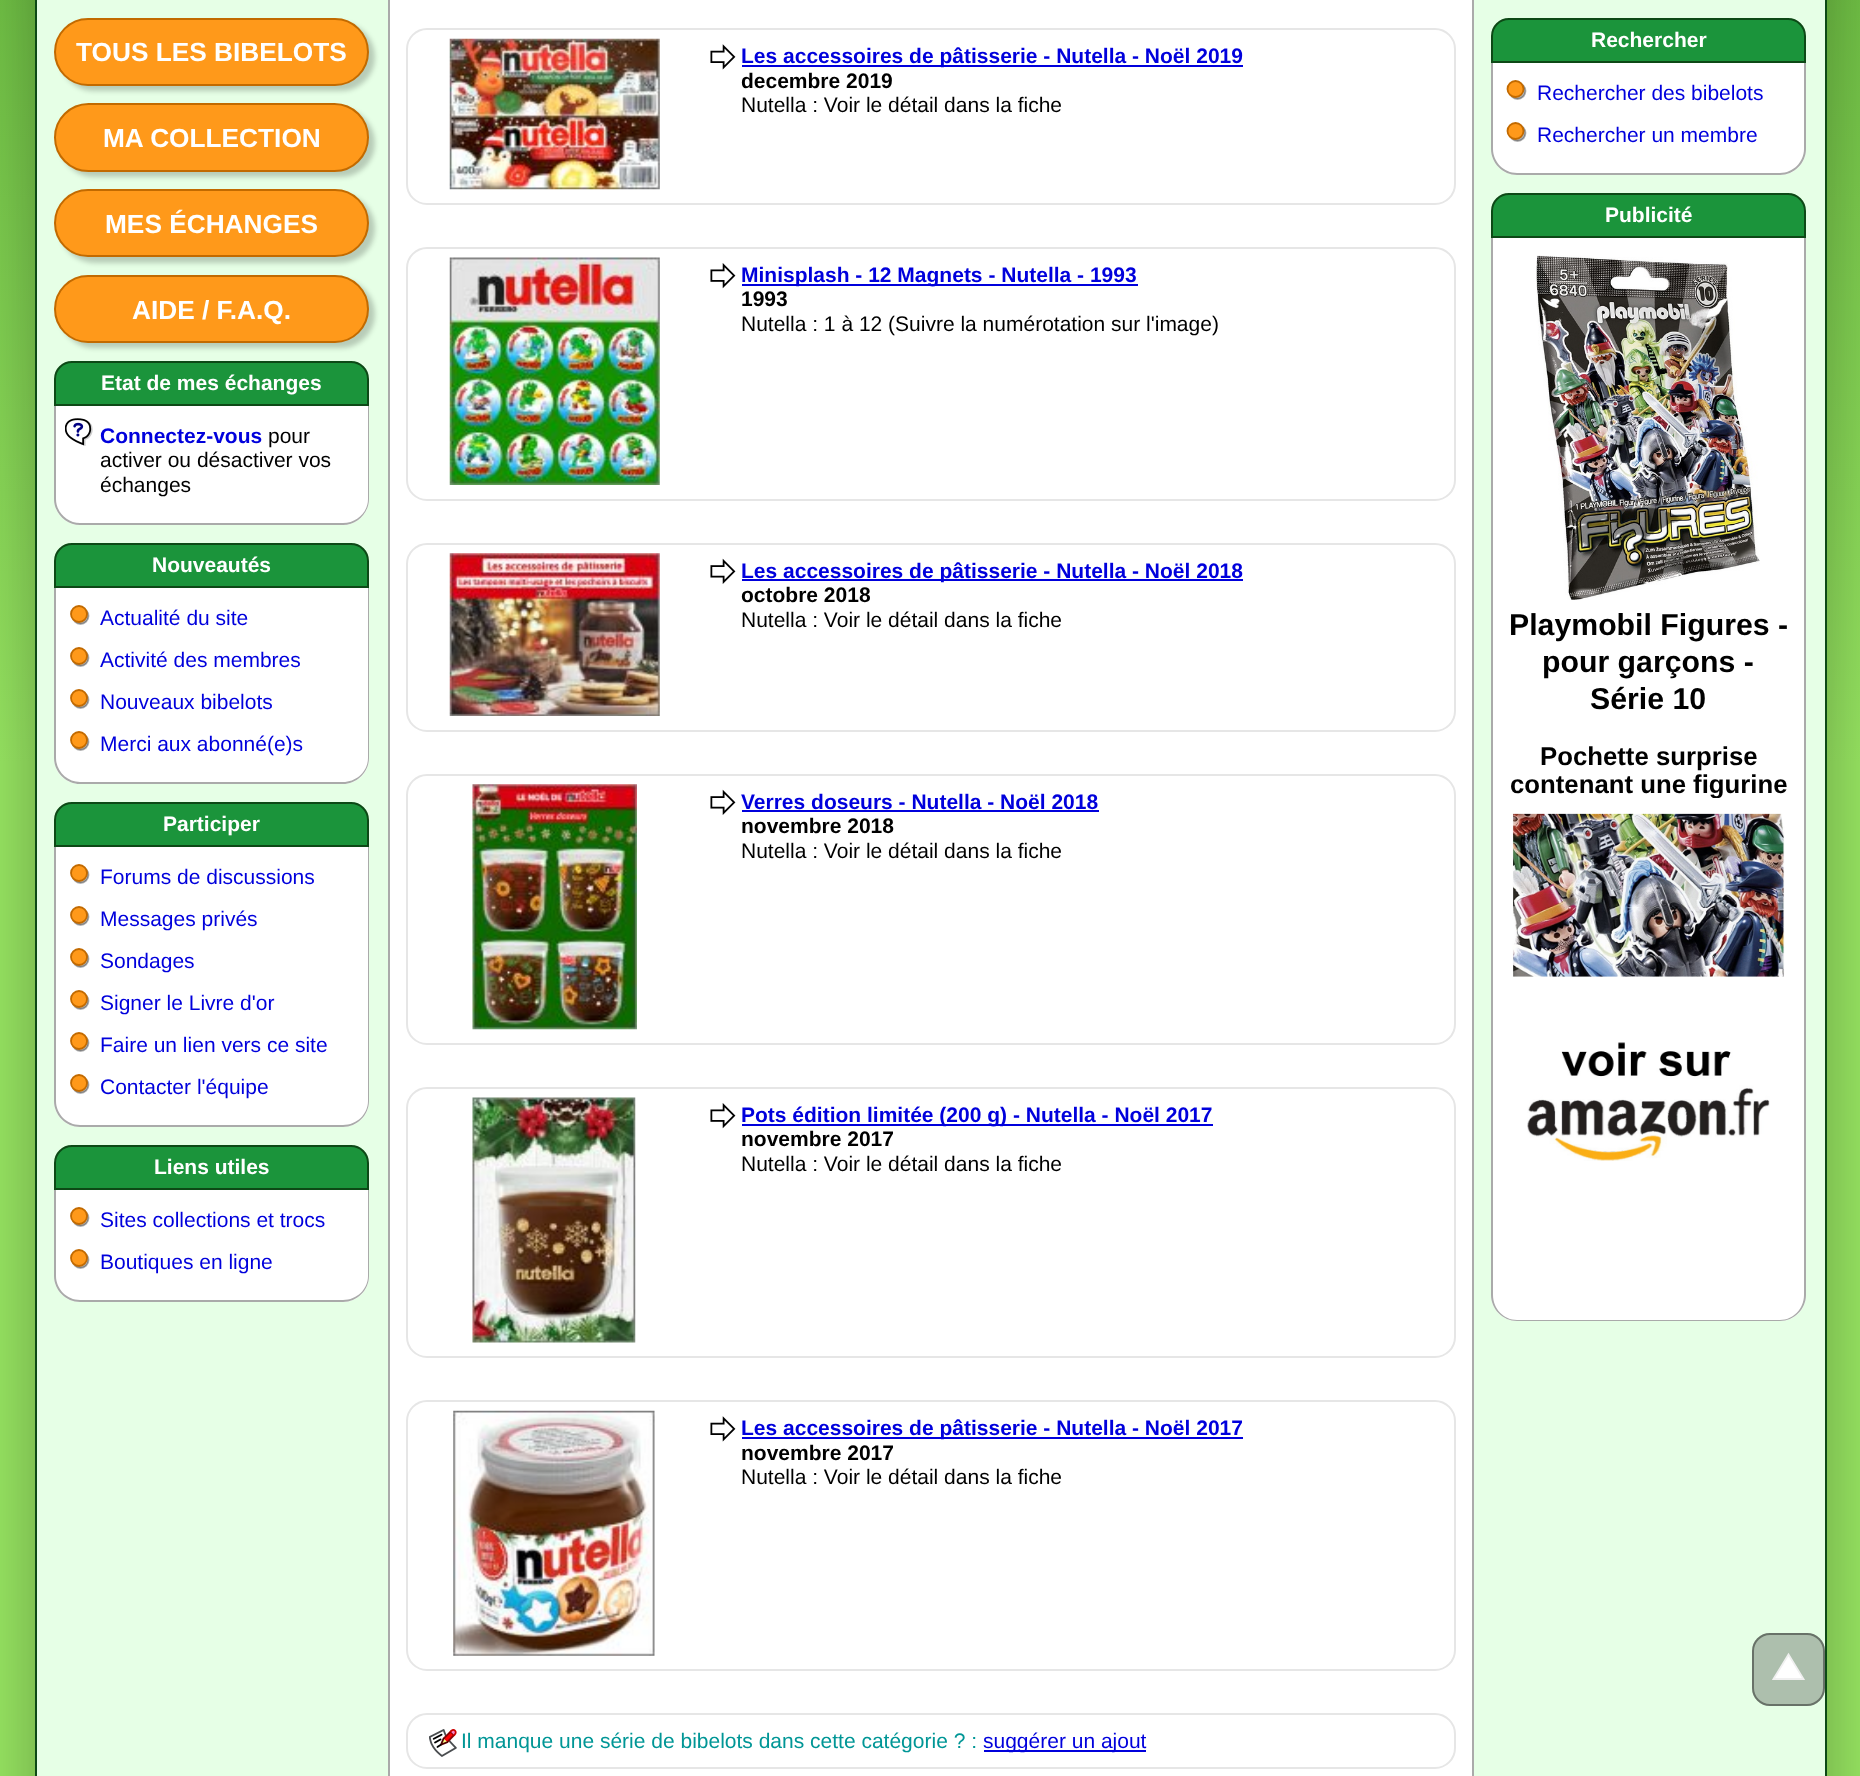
<svg xmlns="http://www.w3.org/2000/svg" width="1860" height="1776" viewBox="0 0 1860 1776">
  <style>
    .t1 { font: bold 26.25px Liberation Sans; fill: #fff; }
    .t2 { font: bold 21px Liberation Sans; fill: #fff; }
    .t3 { font: bold 21px Liberation Sans; fill: #0000dc; }
    .t4 { font: 21px Liberation Sans; fill: #000; }
    .t5 { font: 21px Liberation Sans; fill: #0000dc; }
    .t6 { font: bold 21px Liberation Sans; fill: #000; }
    .t7 { font: 21px Liberation Sans; fill: #009696; }
    .t8 { font: bold 30.25px Liberation Sans; fill: #000; }
    .t9 { font: bold 25.75px Liberation Sans; fill: #000; }
  </style>
  <defs>
    <linearGradient id="g1" gradientUnits="userSpaceOnUse" x1="930" y1="-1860" x2="930" y2="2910"><stop offset="0" stop-color="#116800"/><stop offset="0.55" stop-color="#98e662"/></linearGradient>
    <clipPath id="clip1"><rect x="1509" y="607" width="280" height="191"/></clipPath>
  </defs>
  <rect width="100%" height="100%" fill="#fff"/>
  <rect x="0" y="0" width="1860" height="1776" fill="url(#g1)"/>
  <rect x="35" y="-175" width="1792" height="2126" rx="70" fill="#0000004d" filter="blur(35px)"/>
  <rect x="37" y="0" width="1788" height="1776" fill="#e6ffe6"/>
  <path d="M35-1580H1827V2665C1827 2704 1796 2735 1757 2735H105C66 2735 35 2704 35 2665ZM37-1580H1825V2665C1825 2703 1795 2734 1757 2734H105C67 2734 37 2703 37 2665Z" fill="#0d4916" fill-rule="evenodd"/>
  <rect x="60" y="23" width="315" height="68" rx="34" fill="#00000033" filter="blur(2.5px)"/>
  <rect x="55" y="19" width="313" height="66" rx="33" fill="#ff991a" stroke="#c26a00" stroke-width="2"/>
  <text x="76" y="61" class="t1">TOUS LES BIBELOTS</text>
  <rect x="60" y="109" width="315" height="68" rx="34" fill="#00000033" filter="blur(2.5px)"/>
  <rect x="55" y="104" width="313" height="67" rx="33.5" fill="#ff991a" stroke="#c26a00" stroke-width="2"/>
  <text x="103" y="147" class="t1">MA COLLECTION</text>
  <rect x="60" y="194" width="315" height="69" rx="34.5" fill="#00000033" filter="blur(2.5px)"/>
  <rect x="55" y="190" width="313" height="66" rx="33" fill="#ff991a" stroke="#c26a00" stroke-width="2"/>
  <text x="105" y="233" class="t1">MES ÉCHANGES</text>
  <rect x="60" y="280" width="315" height="68" rx="34" fill="#00000033" filter="blur(2.5px)"/>
  <rect x="55" y="276" width="313" height="66" rx="33" fill="#ff991a" stroke="#c26a00" stroke-width="2"/>
  <text x="132" y="319" class="t1">AIDE / F.A.Q.</text>
  <path d="M72 362H351C360.5 362 368 369.5 368 379V405H55V379C55 369.5 62.5 362 72 362Z" fill="#1b943b" stroke="#0d4916" stroke-width="2"/>
  <text x="101" y="390" class="t2">Etat de mes échanges</text>
  <path d="M54 406H369V499C369 513.5 357.5 525 343 525H80C65.5 525 54 513.5 54 499Z" fill="#fff"/>
  <path d="M54 406H369V499C369 513 357 525 343 525H80C66 525 54 513 54 499ZM56 406H368V499C368 512 357 523 343 523H80C67 523 56 512 56 499Z" fill="#aaa" fill-rule="evenodd"/>
  <image x="65" y="418" width="28" height="28" href="images/1.png"/>
  <text x="100" y="443" class="t3">Connectez-vous</text>
  <text x="268" y="443" class="t4">pour</text>
  <text x="100" y="467" class="t4">activer ou désactiver vos</text>
  <text x="100" y="492" class="t4">échanges</text>
  <path d="M72 544H351C360.5 544 368 551.5 368 561V587H55V561C55 551.5 62.5 544 72 544Z" fill="#1b943b" stroke="#0d4916" stroke-width="2"/>
  <text x="152" y="572" class="t2">Nouveautés</text>
  <path d="M54 588H369V758C369 772.5 357.5 784 343 784H80C65.5 784 54 772.5 54 758Z" fill="#fff"/>
  <path d="M54 588H369V758C369 772 357 784 343 784H80C66 784 54 772 54 758ZM56 588H368V758C368 771 357 782 343 782H80C67 782 56 771 56 758Z" fill="#aaa" fill-rule="evenodd"/>
  <circle cx="80.5" cy="616" r="8" fill="#b3b3b3" stroke="#0000004d" stroke-width="1.8"/>
  <circle cx="79" cy="614" r="8" fill="#ff991a" stroke="#c26a00" stroke-width="1.8"/>
  <text x="100" y="625" class="t5">Actualité du site</text>
  <circle cx="80.5" cy="658" r="8" fill="#b3b3b3" stroke="#0000004d" stroke-width="1.8"/>
  <circle cx="79" cy="656" r="8" fill="#ff991a" stroke="#c26a00" stroke-width="1.8"/>
  <text x="100" y="667" class="t5">Activité des membres</text>
  <circle cx="80.5" cy="700" r="8" fill="#b3b3b3" stroke="#0000004d" stroke-width="1.8"/>
  <circle cx="79" cy="698" r="8" fill="#ff991a" stroke="#c26a00" stroke-width="1.8"/>
  <text x="100" y="709" class="t5">Nouveaux bibelots</text>
  <circle cx="80.5" cy="742" r="8" fill="#b3b3b3" stroke="#0000004d" stroke-width="1.8"/>
  <circle cx="79" cy="740" r="8" fill="#ff991a" stroke="#c26a00" stroke-width="1.8"/>
  <text x="100" y="751" class="t5">Merci aux abonné(e)s</text>
  <path d="M72 803H351C360.5 803 368 810.5 368 820V846H55V820C55 810.5 62.5 803 72 803Z" fill="#1b943b" stroke="#0d4916" stroke-width="2"/>
  <text x="163" y="831" class="t2">Participer</text>
  <path d="M54 847H369V1101C369 1115.5 357.5 1127 343 1127H80C65.5 1127 54 1115.5 54 1101Z" fill="#fff"/>
  <path d="M54 847H369V1101C369 1115 357 1127 343 1127H80C66 1127 54 1115 54 1101ZM56 847H368V1101C368 1114 357 1125 343 1125H80C67 1125 56 1114 56 1101Z" fill="#aaa" fill-rule="evenodd"/>
  <circle cx="80.5" cy="875" r="8" fill="#b3b3b3" stroke="#0000004d" stroke-width="1.8"/>
  <circle cx="79" cy="873" r="8" fill="#ff991a" stroke="#c26a00" stroke-width="1.8"/>
  <text x="100" y="884" class="t5">Forums de discussions</text>
  <circle cx="80.5" cy="917" r="8" fill="#b3b3b3" stroke="#0000004d" stroke-width="1.8"/>
  <circle cx="79" cy="915" r="8" fill="#ff991a" stroke="#c26a00" stroke-width="1.8"/>
  <text x="100" y="926" class="t5">Messages privés</text>
  <circle cx="80.5" cy="959" r="8" fill="#b3b3b3" stroke="#0000004d" stroke-width="1.8"/>
  <circle cx="79" cy="957" r="8" fill="#ff991a" stroke="#c26a00" stroke-width="1.8"/>
  <text x="100" y="968" class="t5">Sondages</text>
  <circle cx="80.5" cy="1001" r="8" fill="#b3b3b3" stroke="#0000004d" stroke-width="1.8"/>
  <circle cx="79" cy="999" r="8" fill="#ff991a" stroke="#c26a00" stroke-width="1.8"/>
  <text x="100" y="1010" class="t5">Signer le Livre d'or</text>
  <circle cx="80.5" cy="1043" r="8" fill="#b3b3b3" stroke="#0000004d" stroke-width="1.8"/>
  <circle cx="79" cy="1041" r="8" fill="#ff991a" stroke="#c26a00" stroke-width="1.8"/>
  <text x="100" y="1052" class="t5">Faire un lien vers ce site</text>
  <circle cx="80.5" cy="1085" r="8" fill="#b3b3b3" stroke="#0000004d" stroke-width="1.8"/>
  <circle cx="79" cy="1083" r="8" fill="#ff991a" stroke="#c26a00" stroke-width="1.8"/>
  <text x="100" y="1094" class="t5">Contacter l'équipe</text>
  <path d="M72 1146H351C360.5 1146 368 1153.5 368 1163V1189H55V1163C55 1153.5 62.5 1146 72 1146Z" fill="#1b943b" stroke="#0d4916" stroke-width="2"/>
  <text x="154" y="1174" class="t2">Liens utiles</text>
  <path d="M54 1190H369V1276C369 1290.5 357.5 1302 343 1302H80C65.5 1302 54 1290.5 54 1276Z" fill="#fff"/>
  <path d="M54 1190H369V1276C369 1290 357 1302 343 1302H80C66 1302 54 1290 54 1276ZM56 1190H368V1276C368 1289 357 1300 343 1300H80C67 1300 56 1289 56 1276Z" fill="#aaa" fill-rule="evenodd"/>
  <circle cx="80.5" cy="1218" r="8" fill="#b3b3b3" stroke="#0000004d" stroke-width="1.8"/>
  <circle cx="79" cy="1216" r="8" fill="#ff991a" stroke="#c26a00" stroke-width="1.8"/>
  <text x="100" y="1227" class="t5">Sites collections et trocs</text>
  <circle cx="80.5" cy="1260" r="8" fill="#b3b3b3" stroke="#0000004d" stroke-width="1.8"/>
  <circle cx="79" cy="1258" r="8" fill="#ff991a" stroke="#c26a00" stroke-width="1.8"/>
  <text x="100" y="1269" class="t5">Boutiques en ligne</text>
  <rect x="390" y="0" width="1082" height="1776" fill="#fff"/>
  <path d="M388-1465H1474V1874C1474 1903 1450 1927 1421 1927H441C412 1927 388 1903 388 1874ZM390-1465H1472V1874C1472 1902 1449 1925 1421 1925H441C413 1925 390 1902 390 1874Z" fill="#aaa" fill-rule="evenodd"/>
  <rect x="407" y="29" width="1048" height="175" rx="20" fill="none" stroke="#e6e6e6" stroke-width="2"/>
  <image x="449" y="38" width="211" height="152" href="images/2.png"/>
  <image x="710" y="44" width="26" height="26" href="images/3.png"/>
  <rect x="742" y="65" width="501" height="2" fill="#0000dc"/>
  <text x="741" y="63" class="t3">Les accessoires de pâtisserie - Nutella - Noël 2019</text>
  <text x="741" y="88" class="t6">decembre 2019</text>
  <text x="741" y="112" class="t4">Nutella : Voir le détail dans la fiche</text>
  <rect x="407" y="248" width="1048" height="252" rx="20" fill="none" stroke="#e6e6e6" stroke-width="2"/>
  <image x="449" y="257" width="211" height="228" href="images/4.png"/>
  <image x="710" y="263" width="26" height="26" href="images/5.png"/>
  <rect x="742" y="284" width="396" height="2" fill="#0000dc"/>
  <text x="741" y="282" class="t3">Minisplash - 12 Magnets - Nutella - 1993</text>
  <text x="741" y="306" class="t6">1993</text>
  <text x="741" y="331" class="t4">Nutella : 1 à 12 (Suivre la numérotation sur l'image)</text>
  <rect x="407" y="544" width="1048" height="187" rx="20" fill="none" stroke="#e6e6e6" stroke-width="2"/>
  <image x="449" y="553" width="211" height="163" href="images/6.png"/>
  <image x="710" y="558" width="26" height="26" href="images/7.png"/>
  <rect x="742" y="579" width="501" height="2" fill="#0000dc"/>
  <text x="741" y="578" class="t3">Les accessoires de pâtisserie - Nutella - Noël 2018</text>
  <text x="741" y="602" class="t6">octobre 2018</text>
  <text x="741" y="627" class="t4">Nutella : Voir le détail dans la fiche</text>
  <rect x="407" y="775" width="1048" height="269" rx="20" fill="none" stroke="#e6e6e6" stroke-width="2"/>
  <image x="472" y="784" width="165" height="246" href="images/8.png"/>
  <image x="710" y="789" width="26" height="26" href="images/7.png"/>
  <text x="741" y="809" class="t3">Verres doseurs - Nutella - Noël 2018</text>
  <rect x="742" y="810" width="357" height="2" fill="#0000dc"/>
  <text x="741" y="833" class="t6">novembre 2018</text>
  <text x="741" y="858" class="t4">Nutella : Voir le détail dans la fiche</text>
  <rect x="407" y="1088" width="1048" height="269" rx="20" fill="none" stroke="#e6e6e6" stroke-width="2"/>
  <image x="472" y="1097" width="164" height="246" href="images/9.png"/>
  <image x="710" y="1103" width="26" height="26" href="images/5.png"/>
  <rect x="742" y="1124" width="471" height="2" fill="#0000dc"/>
  <text x="741" y="1122" class="t3">Pots édition limitée (200 g) - Nutella - Noël 2017</text>
  <text x="741" y="1146" class="t6">novembre 2017</text>
  <text x="741" y="1171" class="t4">Nutella : Voir le détail dans la fiche</text>
  <rect x="407" y="1401" width="1048" height="269" rx="20" fill="none" stroke="#e6e6e6" stroke-width="2"/>
  <image x="453" y="1410" width="202" height="246" href="images/10.png"/>
  <image x="710" y="1416" width="26" height="26" href="images/3.png"/>
  <rect x="742" y="1437" width="501" height="2" fill="#0000dc"/>
  <text x="741" y="1435" class="t3">Les accessoires de pâtisserie - Nutella - Noël 2017</text>
  <text x="741" y="1460" class="t6">novembre 2017</text>
  <text x="741" y="1484" class="t4">Nutella : Voir le détail dans la fiche</text>
  <rect x="407" y="1714" width="1048" height="54" rx="20" fill="none" stroke="#e6e6e6" stroke-width="2"/>
  <image x="429" y="1729" width="28" height="28" href="images/11.png"/>
  <text x="461" y="1748" class="t7">Il manque une série de bibelots dans cette catégorie ? :</text>
  <rect x="984" y="1750" width="162" height="2" fill="#0000dc"/>
  <text x="983" y="1748" class="t5">suggérer un ajout</text>
  <path d="M1509 19H1788C1797.5 19 1805 26.5 1805 36V62H1492V36C1492 26.5 1499.5 19 1509 19Z" fill="#1b943b" stroke="#0d4916" stroke-width="2"/>
  <text x="1591" y="47" class="t2">Rechercher</text>
  <path d="M1491 63H1806V149C1806 163.5 1794.5 175 1780 175H1517C1502.5 175 1491 163.5 1491 149Z" fill="#fff"/>
  <path d="M1491 63H1806V149C1806 163 1794 175 1780 175H1517C1503 175 1491 163 1491 149ZM1493 63H1804V149C1804 162 1793 173 1780 173H1517C1504 173 1493 162 1493 149Z" fill="#aaa" fill-rule="evenodd"/>
  <circle cx="1517.5" cy="91" r="8" fill="#b3b3b3" stroke="#0000004d" stroke-width="1.8"/>
  <circle cx="1515.5" cy="89" r="8" fill="#ff991a" stroke="#c26a00" stroke-width="1.8"/>
  <text x="1537" y="100" class="t5">Rechercher des bibelots</text>
  <circle cx="1517.5" cy="133" r="8" fill="#b3b3b3" stroke="#0000004d" stroke-width="1.8"/>
  <circle cx="1515.5" cy="131" r="8" fill="#ff991a" stroke="#c26a00" stroke-width="1.8"/>
  <text x="1537" y="142" class="t5">Rechercher un membre</text>
  <path d="M1509 194H1788C1797.5 194 1805 201.5 1805 211V237H1492V211C1492 201.5 1499.5 194 1509 194Z" fill="#1b943b" stroke="#0d4916" stroke-width="2"/>
  <text x="1605" y="222" class="t2">Publicité</text>
  <path d="M1491 238H1806V1295C1806 1309.5 1794.5 1321 1780 1321H1517C1502.5 1321 1491 1309.5 1491 1295Z" fill="#fff"/>
  <path d="M1491 238H1806V1295C1806 1309 1794 1321 1780 1321H1517C1503 1321 1491 1309 1491 1295ZM1493 238H1804V1295C1804 1309 1793 1320 1780 1320H1517C1504 1320 1493 1309 1493 1295Z" fill="#aaa" fill-rule="evenodd"/>
  <image x="1536" y="255" width="224" height="345" href="images/12.png"/>
  <text x="1509" y="635" class="t8">Playmobil Figures -</text>
  <text x="1542" y="672" class="t8">pour garçons -</text>
  <text x="1590" y="709" class="t8">Série 10</text>
  <text x="1540" y="765" class="t9">Pochette surprise</text>
  <g clip-path="url(#clip1)">
    <text x="1510" y="793" class="t9">contenant une figurine</text>
  </g>
  <image x="1512" y="813" width="273" height="164" href="images/13.png"/>
  <image x="1527" y="1042" width="243" height="119" href="images/14.png"/>
  <rect x="1752" y="1633" width="73" height="73" rx="18" fill="#adbfad"/>
  <path d="M1773.5 1679L1788.5 1654.5L1803.5 1679Z" fill="#fff" stroke="#f0f0f0" stroke-width="1.8"/>
  <rect x="1753" y="1634" width="71" height="71" rx="17" fill="none" stroke="#00000066" stroke-width="2"/>
</svg>
